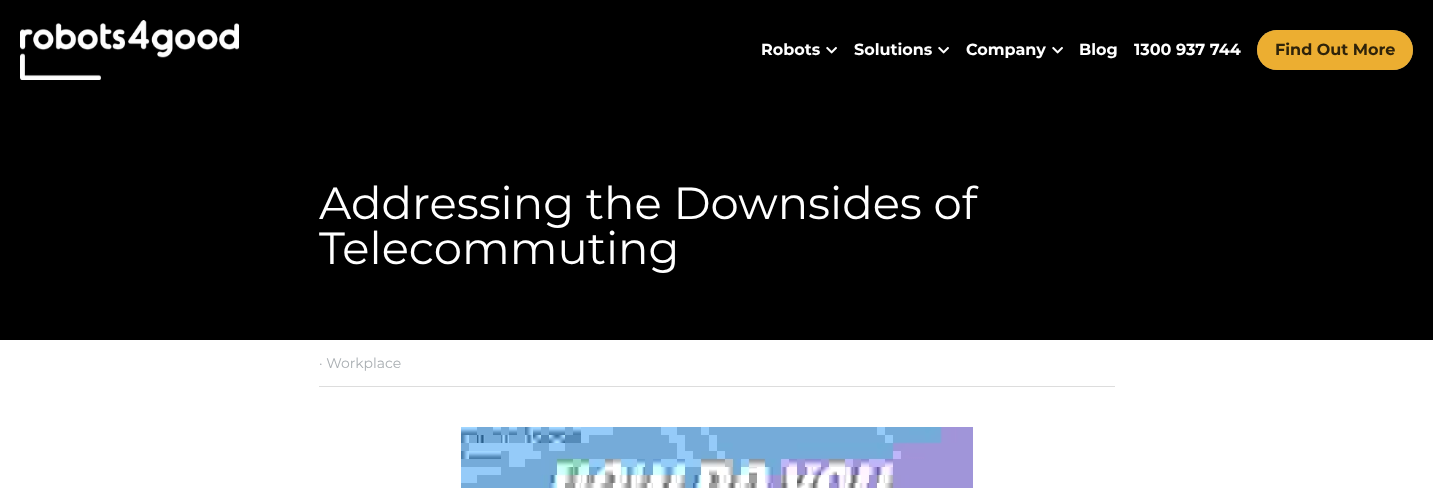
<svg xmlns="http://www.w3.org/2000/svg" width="1433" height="488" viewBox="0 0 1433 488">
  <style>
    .t1 { font: bold 16px Montserrat; fill: #fff; }
    .t2 { font: bold 16px Montserrat; fill: #2f230a; }
    .t3 { font: 45px Montserrat; fill: #fff; }
    .t4 { font: 14px Montserrat; fill: #a9aeb2; }
  </style>
  <rect width="100%" height="100%" fill="#fff"/>
  <rect x="0" y="0" width="1433" height="340" fill="#000"/>
  <image x="20" y="20" width="219" height="60" href="images/1.png"/>
  <text x="761" y="55" class="t1">Robots</text>
  <image x="826" y="46" width="11" height="8" href="images/2.png"/>
  <text x="854" y="55" class="t1">Solutions</text>
  <image x="938" y="46" width="11" height="8" href="images/2.png"/>
  <text x="966" y="55" class="t1">Company</text>
  <image x="1052" y="46" width="11" height="8" href="images/2.png"/>
  <text x="1079" y="55" class="t1">Blog</text>
  <text x="1134" y="55" class="t1">1300 937 744</text>
  <rect x="1257" y="30" width="156" height="40" rx="20" fill="#ffffff80" filter="blur(0.5px)"/>
  <rect x="1257" y="30" width="156" height="40" rx="20" fill="#ecae31"/>
  <text x="1275" y="55" class="t2">Find Out More</text>
  <text x="319" y="219" class="t3">Addressing the Downsides of</text>
  <text x="319" y="264" class="t3">Telecommuting</text>
  <rect x="319" y="386" width="796" height="1" fill="#ddd"/>
  <text x="319" y="368" class="t4">· Workplace</text>
  <image x="461" y="427" width="512" height="61" href="images/3.png"/>
</svg>
